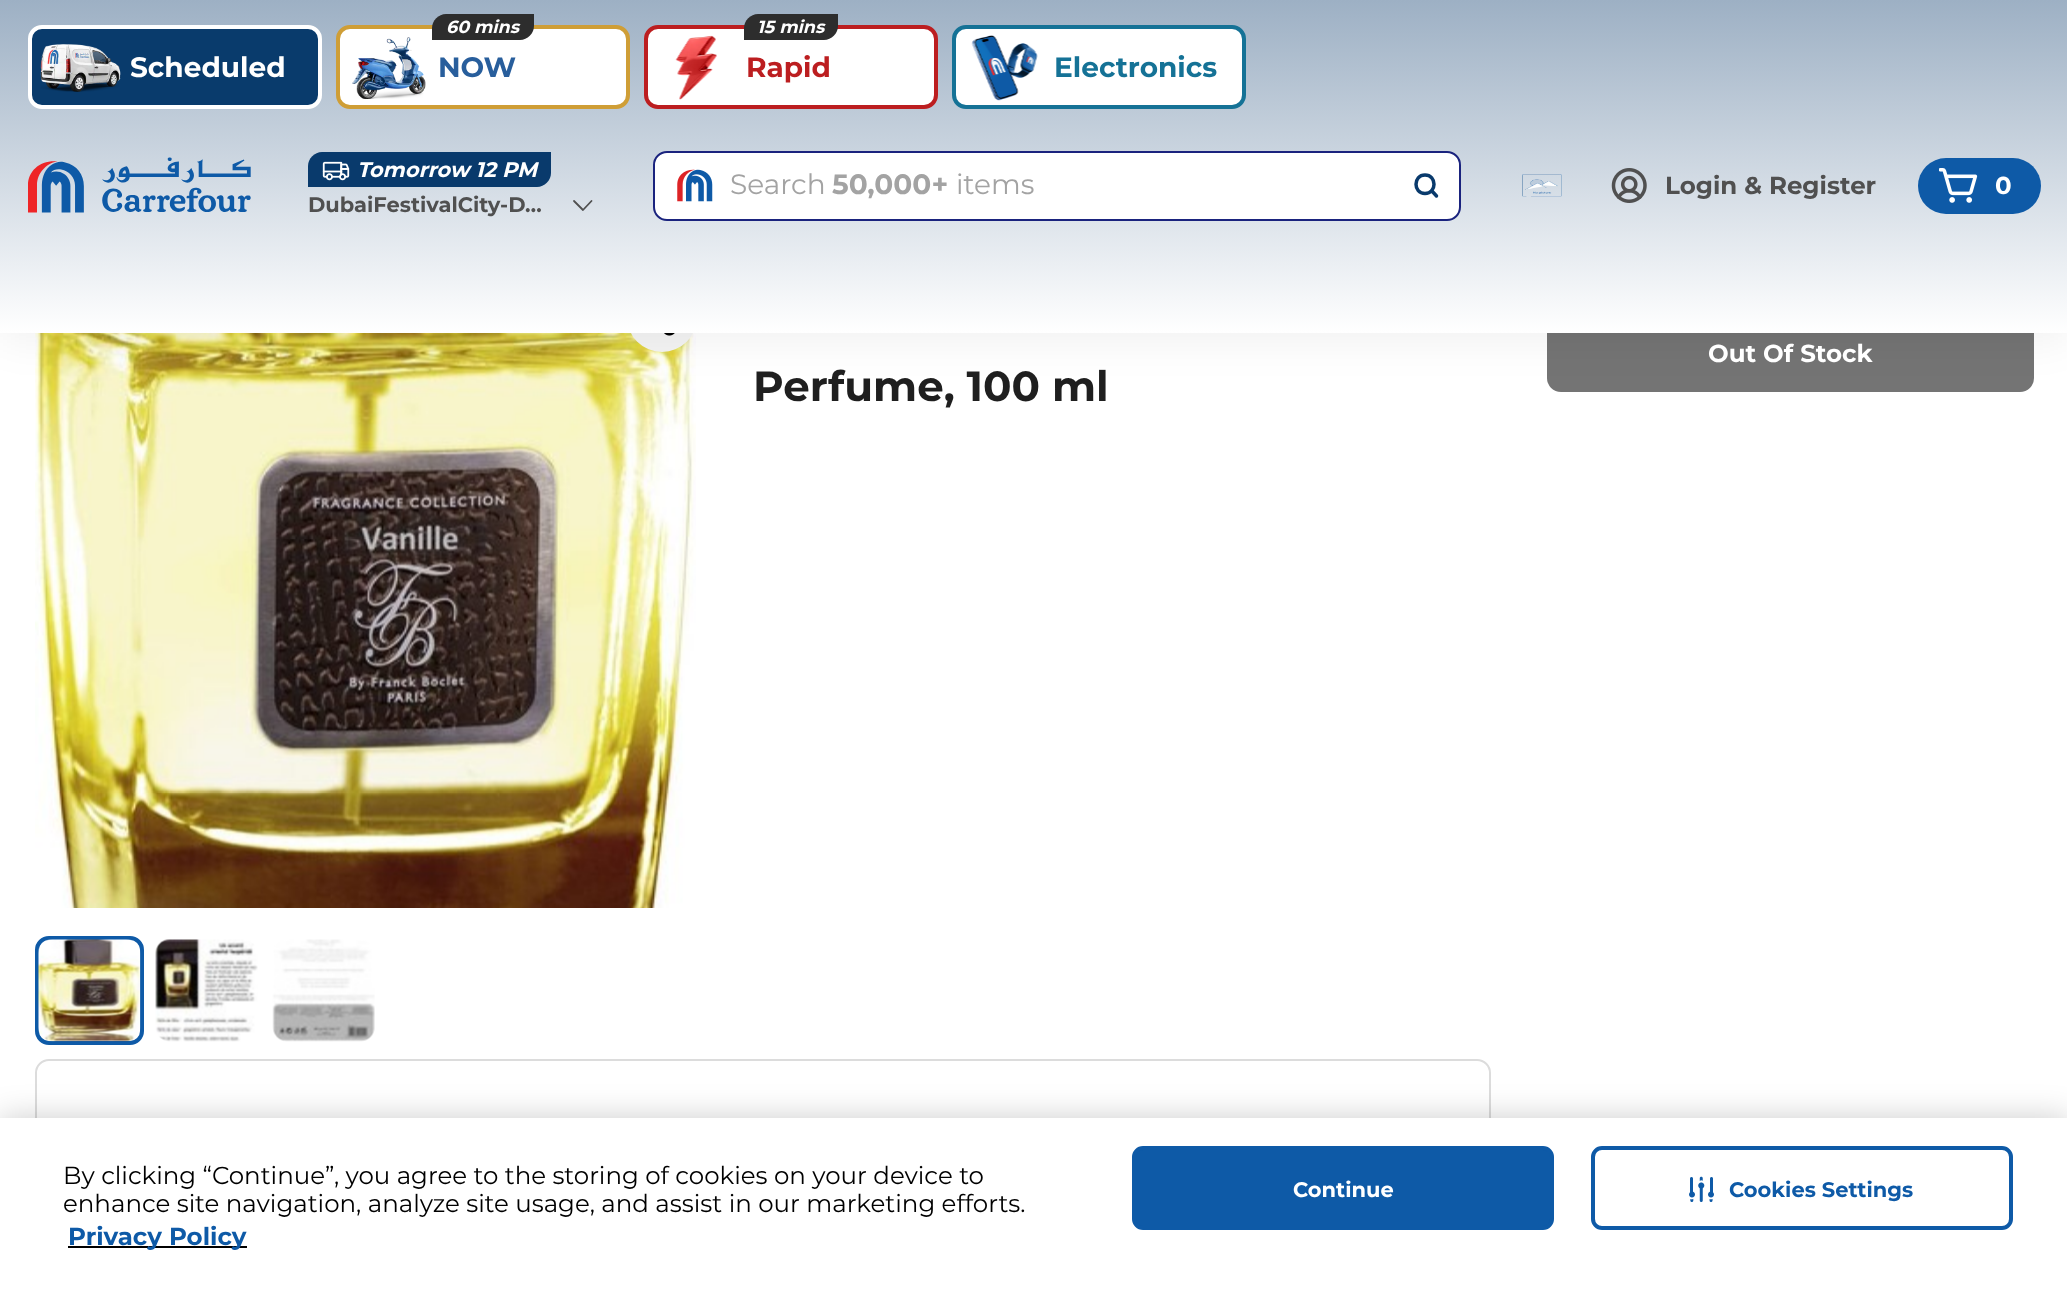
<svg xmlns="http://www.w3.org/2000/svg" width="2067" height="1296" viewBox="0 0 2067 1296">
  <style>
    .t1 { font: bold 28px Montserrat; fill: #fff; }
    .t2 { font: italic bold 17.5px Montserrat; fill: #fff; }
    .t3 { font: bold 28px Montserrat; fill: #285e9c; }
    .t4 { font: bold 28px Montserrat; fill: #bc1e20; }
    .t5 { font: bold 28px Montserrat; fill: #157296; }
    .t6 { font: italic bold 21px Montserrat; fill: #fff; }
    .t7 { font: bold 21px Montserrat; fill: #505050; }
    .t8 { font: 28px Montserrat; fill: #a3a3a3; }
    .t9 { font: bold 28px Montserrat; fill: #a3a3a3; }
    .t10 { font: bold 24.5px Montserrat; fill: #505050; }
    .t11 { font: bold 24.5px Montserrat; fill: #fff; }
    .t12 { font: bold 42px Montserrat; fill: #1f1f1f; }
    .t13 { font: 24.5px Montserrat; fill: #000; }
    .t14 { font: bold 24.5px Montserrat; fill: #0e5aa7; }
    .t15 { font: bold 21px Montserrat; fill: #fff; }
    .t16 { font: bold 21px Montserrat; fill: #0e5aa7; }
  </style>
  <defs>
    <linearGradient id="g1" gradientUnits="userSpaceOnUse" x1="1034" y1="0" x2="1034" y2="333"><stop offset="0" stop-color="#9db0c4"/><stop offset="1" stop-color="#fff"/></linearGradient>
  </defs>
  <rect width="100%" height="100%" fill="#fff"/>
  <image x="35" y="333" width="661" height="575" href="images/12.png"/>
  <circle cx="662" cy="317" r="35" fill="#f4f4f4"/>
  <image x="664" y="333" width="11" height="3" href="images/11.png"/>
  <rect x="1547" y="315" width="487" height="77" rx="14" fill="#747474"/>
  <rect x="0" y="7" width="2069" height="333" fill="#0000000f" filter="blur(21px)"/>
  <rect x="0" y="0" width="2067" height="333" fill="url(#g1)"/>
  <rect x="30" y="27" width="290" height="80" rx="12" fill="#093b6c" stroke="#fff" stroke-width="4"/>
  <image x="40" y="44" width="81" height="48" href="images/1.png"/>
  <text x="130" y="77" class="t1">Scheduled</text>
  <rect x="338" y="27" width="290" height="80" rx="12" fill="#fff" stroke="#cf9e36" stroke-width="4"/>
  <path d="M446 14H534V26C534 33.5 527.5 40 520 40H432V28C432 20.5 438.5 14 446 14Z" fill="#2d2d2d"/>
  <text x="446" y="33" class="t2">60 mins</text>
  <image x="352" y="37" width="74" height="62" href="images/2.png"/>
  <text x="438" y="77" class="t3">NOW</text>
  <rect x="646" y="27" width="290" height="80" rx="12" fill="#fff" stroke="#bc1e20" stroke-width="4"/>
  <path d="M758 14H838V26C838 33.5 831.5 40 824 40H744V28C744 20.5 750.5 14 758 14Z" fill="#2d2d2d"/>
  <text x="757" y="33" class="t2">15 mins</text>
  <image x="675" y="35" width="42" height="65" href="images/3.png"/>
  <text x="746" y="77" class="t4">Rapid</text>
  <rect x="954" y="27" width="290" height="80" rx="12" fill="#fff" stroke="#157296" stroke-width="4"/>
  <image x="971" y="35" width="67" height="66" href="images/4.png"/>
  <text x="1054" y="77" class="t5">Electronics</text>
  <image x="28" y="157" width="223" height="56" href="images/5.png"/>
  <path d="M322 152H551V173C551 180.5 544.5 187 537 187H308V166C308 158.5 314.5 152 322 152Z" fill="#093a6c"/>
  <image x="322" y="161" width="28" height="20" href="images/6.png"/>
  <text x="357" y="177" class="t6">Tomorrow 12 PM</text>
  <text x="308" y="212" class="t7">DubaiFestivalCity-D…</text>
  <path d="M591.5 201L583 210L574 201" fill="none" stroke="#505050" stroke-width="1.8" stroke-linecap="round" stroke-linejoin="round"/>
  <rect x="654" y="152" width="806" height="68" rx="13" fill="#fff" stroke="#1a237e" stroke-width="2"/>
  <image x="677" y="169" width="36" height="33" href="images/7.png"/>
  <text x="730" y="194" class="t8">Search</text>
  <text x="832" y="194" class="t9">50,000+</text>
  <text x="956" y="194" class="t8">items</text>
  <path d="M1425 193.5C1437 193.5 1437 175 1425 175C1413 175 1413 193.5 1425 193.5ZM1431.5 190.5L1436.5 196" fill="none" stroke="#093a6c" stroke-width="3.5" stroke-linecap="round" stroke-linejoin="round"/>
  <image x="1522" y="174" width="40" height="23" href="images/8.png"/>
  <image x="1611" y="168" width="36" height="35" href="images/9.png"/>
  <text x="1665" y="194" class="t10">Login &amp; Register</text>
  <rect x="1918" y="158" width="123" height="56" rx="28" fill="#0e5aa7"/>
  <image x="1939" y="168" width="39" height="35" href="images/10.png"/>
  <text x="1995" y="194" class="t11">0</text>
  <rect x="37" y="938" width="105" height="105" rx="12" fill="none" stroke="#0e5aa7" stroke-width="4"/>
  <image x="38" y="939" width="103" height="103" href="images/13.png"/>
  <image x="155" y="939" width="103" height="103" href="images/14.png"/>
  <image x="272" y="939" width="103" height="103" href="images/15.png"/>
  <text x="1708" y="362" class="t11">Out Of Stock</text>
  <text x="753" y="401" class="t12">Perfume, 100 ml</text>
  <rect x="36" y="1060" width="1454" height="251" rx="13" fill="none" stroke="#dcdcdc" stroke-width="2"/>
  <rect x="0" y="1118" width="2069" height="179" fill="#00000033" filter="blur(16px)"/>
  <rect x="0" y="1118" width="2067" height="178" fill="#fff"/>
  <text x="63" y="1184" class="t13">By clicking “Continue”, you agree to the storing of cookies on your device to</text>
  <text x="63" y="1212" class="t13">enhance site navigation, analyze site usage, and assist in our marketing efforts.</text>
  <rect x="68" y="1246" width="179" height="2" fill="#000"/>
  <text x="68" y="1245" class="t14">Privacy Policy</text>
  <rect x="1134" y="1148" width="418" height="80" rx="9" fill="#0e5aa7" stroke="#0e5aa7" stroke-width="4"/>
  <text x="1293" y="1197" class="t15">Continue</text>
  <rect x="1593" y="1148" width="418" height="80" rx="9" fill="none" stroke="#0e5aa7" stroke-width="4"/>
  <image x="1689" y="1176" width="25" height="26" href="images/16.png"/>
  <text x="1729" y="1197" class="t16">Cookies Settings</text>
</svg>
